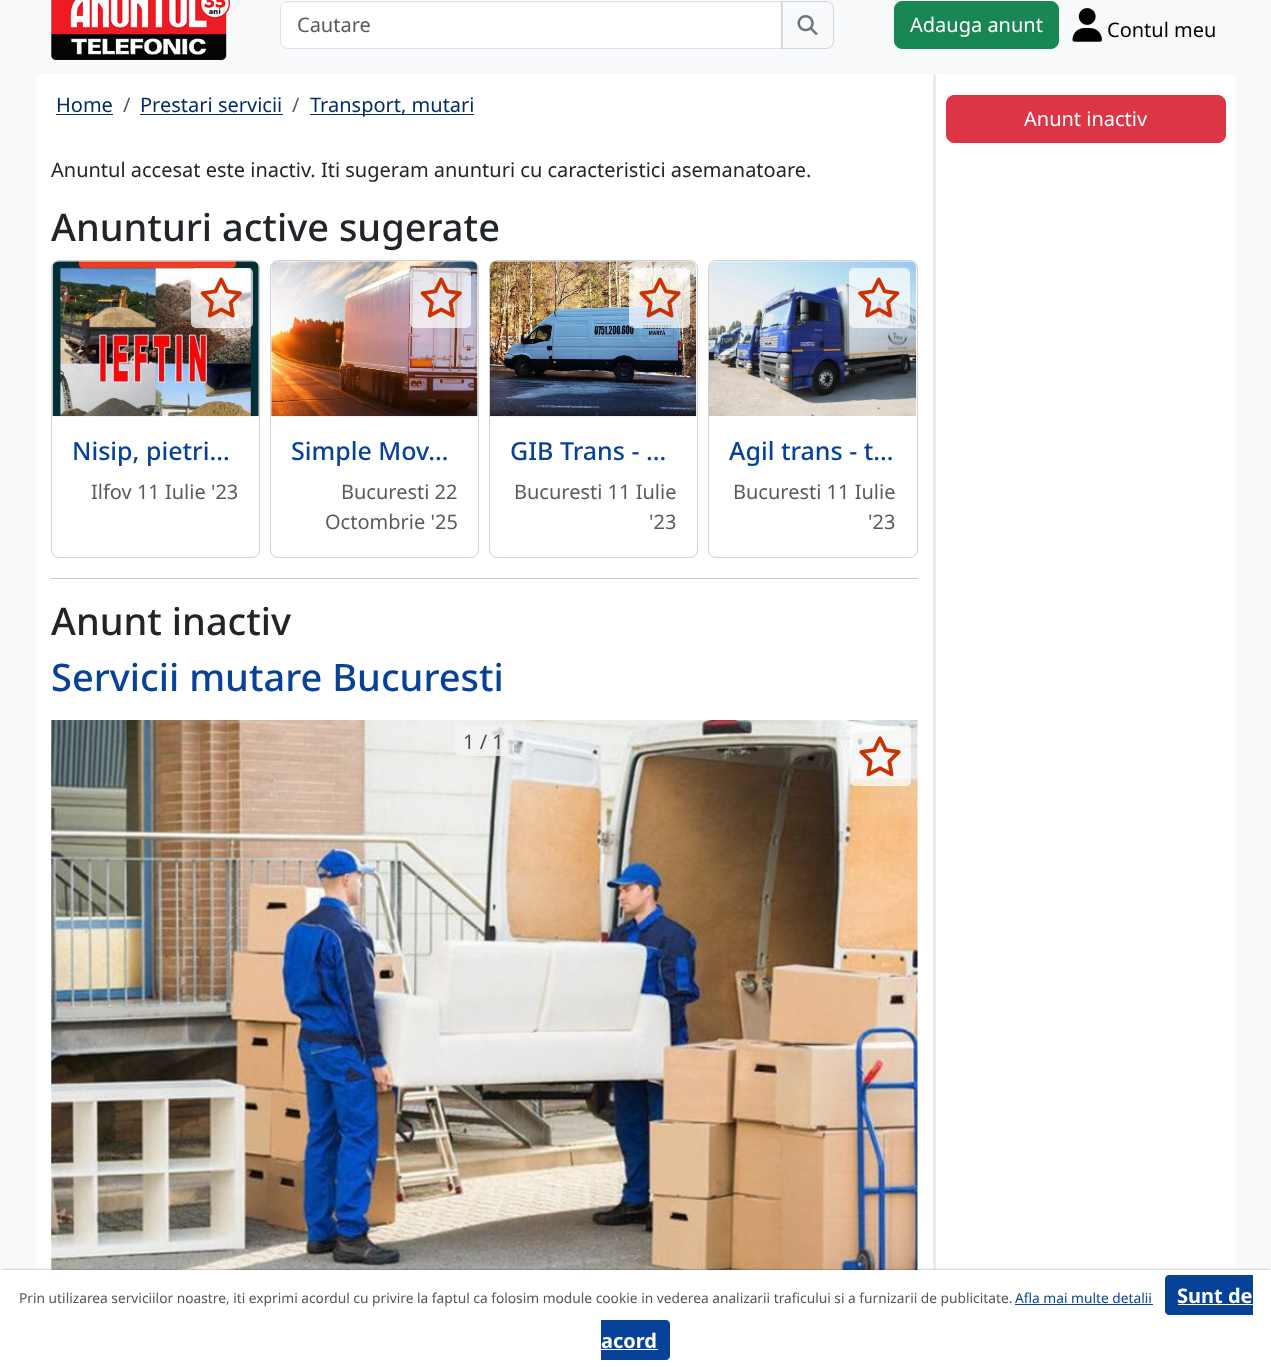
<svg xmlns="http://www.w3.org/2000/svg" width="1271" height="1367" viewBox="0 0 1271 1367">
  <style>
    .t1 { font: 20px Noto Sans; fill: #595c5f; }
    .t2 { font: 20px Noto Sans; fill: #fff; }
    .t3 { font: 20px Noto Sans; fill: #000; }
    .t4 { font: 20px Noto Sans; fill: #052c65; }
    .t5 { font: 20px Noto Sans; fill: #212529; }
    .t6 { font: 500 38px Noto Sans; fill: #212529; }
    .t7 { font: 500 25px Noto Sans; fill: #084298; }
    .t8 { font: 500 38px Noto Sans; fill: #084298; }
    .t9 { font: 20px Noto Sans; fill: #4a4d50; }
    .t10 { font: 13.75px Noto Sans; fill: #555; }
    .t11 { font: 13.75px Noto Sans; fill: #084298; }
    .t12 { font: bold 20px Noto Sans; fill: #fff; }
  </style>
  <rect width="100%" height="100%" fill="#f8f9fa"/>
  <image x="51" y="0" width="179" height="60" href="images/1.png"/>
  <path d="M287 3H781V48H287C283.5 48 281 45.5 281 42V9C281 5.5 283.5 3 287 3Z" fill="#fff"/>
  <path d="M288 1.5H782.5V48.5H288C284 48.5 280.5 45 280.5 41V9C280.5 5 284 1.5 288 1.5Z" fill="none" stroke="#dee2e6"/>
  <text x="297" y="32" class="t1">Cautare</text>
  <path d="M781.5 1.5H826C830 1.5 833.5 5 833.5 9V41C833.5 45 830 48.5 826 48.5H781.5Z" fill="none" stroke="#ced4da"/>
  <image x="797" y="15" width="21" height="20" href="images/2.png"/>
  <rect x="894.5" y="1.5" width="164" height="47" rx="7.5" fill="#198754" stroke="#198754"/>
  <text x="910" y="32" class="t2">Adauga anunt</text>
  <image x="1072" y="8" width="30" height="34" href="images/3.png"/>
  <text x="1107" y="37" class="t3">Contul meu</text>
  <rect x="36" y="75" width="897" height="1195" fill="#fff"/>
  <rect x="933" y="75" width="3" height="1195" fill="#e9ecef"/>
  <text x="56" y="112" class="t4">Home</text>
  <rect x="56" y="114" width="57" height="1" fill="#052c65"/>
  <text x="123" y="112" class="t1">/</text>
  <text x="140" y="112" class="t4">Prestari servicii</text>
  <rect x="140" y="114" width="143" height="1" fill="#052c65"/>
  <text x="292" y="112" class="t1">/</text>
  <rect x="310" y="114" width="164" height="1" fill="#052c65"/>
  <text x="310" y="112" class="t4">Transport, mutari</text>
  <text x="51" y="177" class="t5">Anuntul accesat este inactiv. Iti sugeram anunturi cu caracteristici asemanatoare.</text>
  <text x="51" y="241" class="t6">Anunturi active sugerate</text>
  <rect x="51.5" y="260.5" width="208" height="297" rx="7.5" fill="none" stroke="#d2d2d2"/>
  <image x="52" y="261" width="207" height="156" href="images/4.png"/>
  <rect x="191" y="268" width="62" height="60" rx="5" fill="#ffffffb3"/>
  <image x="200" y="277" width="42" height="41" href="images/5.png"/>
  <text x="72" y="460" class="t7">Nisip, pietri…</text>
  <text x="91" y="499" class="t1">Ilfov 11 Iulie '23</text>
  <rect x="270.5" y="260.5" width="208" height="297" rx="7.5" fill="none" stroke="#d2d2d2"/>
  <image x="271" y="261" width="207" height="156" href="images/6.png"/>
  <rect x="410" y="268" width="61" height="60" rx="5" fill="#ffffffb3"/>
  <image x="420" y="277" width="42" height="41" href="images/7.png"/>
  <text x="291" y="460" class="t7">Simple Mov…</text>
  <text x="341" y="499" class="t1">Bucuresti 22</text>
  <text x="325" y="529" class="t1">Octombrie '25</text>
  <rect x="489.5" y="260.5" width="208" height="297" rx="7.5" fill="none" stroke="#d2d2d2"/>
  <image x="490" y="261" width="207" height="156" href="images/8.png"/>
  <rect x="629" y="268" width="61" height="60" rx="5" fill="#ffffffb3"/>
  <image x="639" y="277" width="42" height="41" href="images/9.png"/>
  <text x="510" y="460" class="t7">GIB Trans - …</text>
  <text x="514" y="499" class="t1">Bucuresti 11 Iulie</text>
  <text x="649" y="529" class="t1">'23</text>
  <rect x="708.5" y="260.5" width="209" height="297" rx="7.5" fill="none" stroke="#d2d2d2"/>
  <image x="708" y="261" width="209" height="156" href="images/10.png"/>
  <rect x="849" y="268" width="61" height="60" rx="5" fill="#ffffffb3"/>
  <image x="858" y="277" width="42" height="41" href="images/11.png"/>
  <text x="729" y="460" class="t7">Agil trans - t…</text>
  <text x="733" y="499" class="t1">Bucuresti 11 Iulie</text>
  <text x="868" y="529" class="t1">'23</text>
  <rect x="51" y="578" width="867" height="1" fill="#c8c9ca"/>
  <text x="51" y="635" class="t6">Anunt inactiv</text>
  <text x="51" y="691" class="t8">Servicii mutare Bucuresti</text>
  <image x="51" y="720" width="867" height="550" href="images/12.png"/>
  <rect x="455" y="726" width="59" height="30" rx="6" fill="#f4f4f4cc"/>
  <text x="463" y="749" class="t9">1 / 1</text>
  <rect x="850" y="726" width="61" height="60" rx="5" fill="#ffffffb3"/>
  <image x="859" y="736" width="42" height="41" href="images/13.png"/>
  <rect x="936" y="75" width="300" height="1195" fill="#fff"/>
  <rect x="946.5" y="95.5" width="279" height="47" rx="7.5" fill="#dc3545" stroke="#dc3545"/>
  <text x="1024" y="126" class="t2">Anunt inactiv</text>
  <rect x="3" y="1270" width="1266" height="93" fill="#00000066" filter="blur(1px)"/>
  <rect x="0" y="1270" width="1271" height="97" fill="#fff"/>
  <text x="19" y="1303" class="t10">Prin utilizarea serviciilor noastre, iti exprimi acordul cu privire la faptul ca folosim module cookie in vederea analizarii traficului si a furnizarii de publicitate.</text>
  <text x="1015" y="1303" class="t11">Afla mai multe detalii</text>
  <rect x="1015" y="1304" width="138" height="1" fill="#084298"/>
  <path d="M1169 1275H1253V1315H1169C1167 1315 1165 1313 1165 1311V1279C1165 1277 1167 1275 1169 1275Z" fill="#084298"/>
  <text x="1177" y="1303" class="t12">Sunt de</text>
  <rect x="1178" y="1304" width="75" height="1" fill="#fff"/>
  <path d="M601 1320H666C668 1320 670 1322 670 1324V1356C670 1358 668 1360 666 1360H601Z" fill="#084298"/>
  <text x="601" y="1348" class="t12">acord</text>
  <rect x="601" y="1349" width="57" height="1" fill="#fff"/>
</svg>
